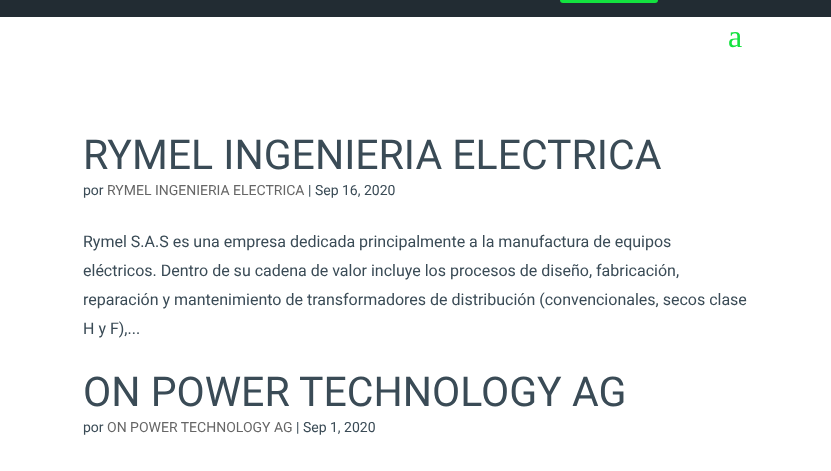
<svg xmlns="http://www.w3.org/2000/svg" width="831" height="471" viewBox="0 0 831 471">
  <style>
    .t1 { font: 32px Liberation Serif; fill: #13e23f; }
    .t2 { font: 41px Roboto; fill: #3a4b56; }
    .t3 { font: 14px Roboto; fill: #3a4b56; }
    .t4 { font: 14px Roboto; fill: #666; }
    .t5 { font: 16px Roboto; fill: #3a4b56; }
  </style>
  <rect width="100%" height="100%" fill="#fff"/>
  <rect x="0" y="0" width="831" height="17" fill="#222c33"/>
  <rect x="560" y="-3" width="98" height="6" rx="3" fill="#13e23f"/>
  <text x="728" y="47" class="t1">a</text>
  <text x="83" y="169" class="t2">RYMEL INGENIERIA ELECTRICA</text>
  <text x="83" y="195" class="t3">por</text>
  <text x="107" y="195" class="t4">RYMEL INGENIERIA ELECTRICA</text>
  <text x="308" y="195" class="t3">| Sep 16, 2020</text>
  <text x="83" y="247" class="t5">Rymel S.A.S es una empresa dedicada principalmente a la manufactura de equipos</text>
  <text x="83" y="276" class="t5">eléctricos. Dentro de su cadena de valor incluye los procesos de diseño, fabricación,</text>
  <text x="83" y="305" class="t5">reparación y mantenimiento de transformadores de distribución (convencionales, secos clase</text>
  <text x="83" y="334" class="t5">H y F),...</text>
  <text x="83" y="406" class="t2">ON POWER TECHNOLOGY AG</text>
  <text x="83" y="432" class="t3">por</text>
  <text x="107" y="432" class="t4">ON POWER TECHNOLOGY AG</text>
  <text x="296" y="432" class="t3">| Sep 1, 2020</text>
</svg>
